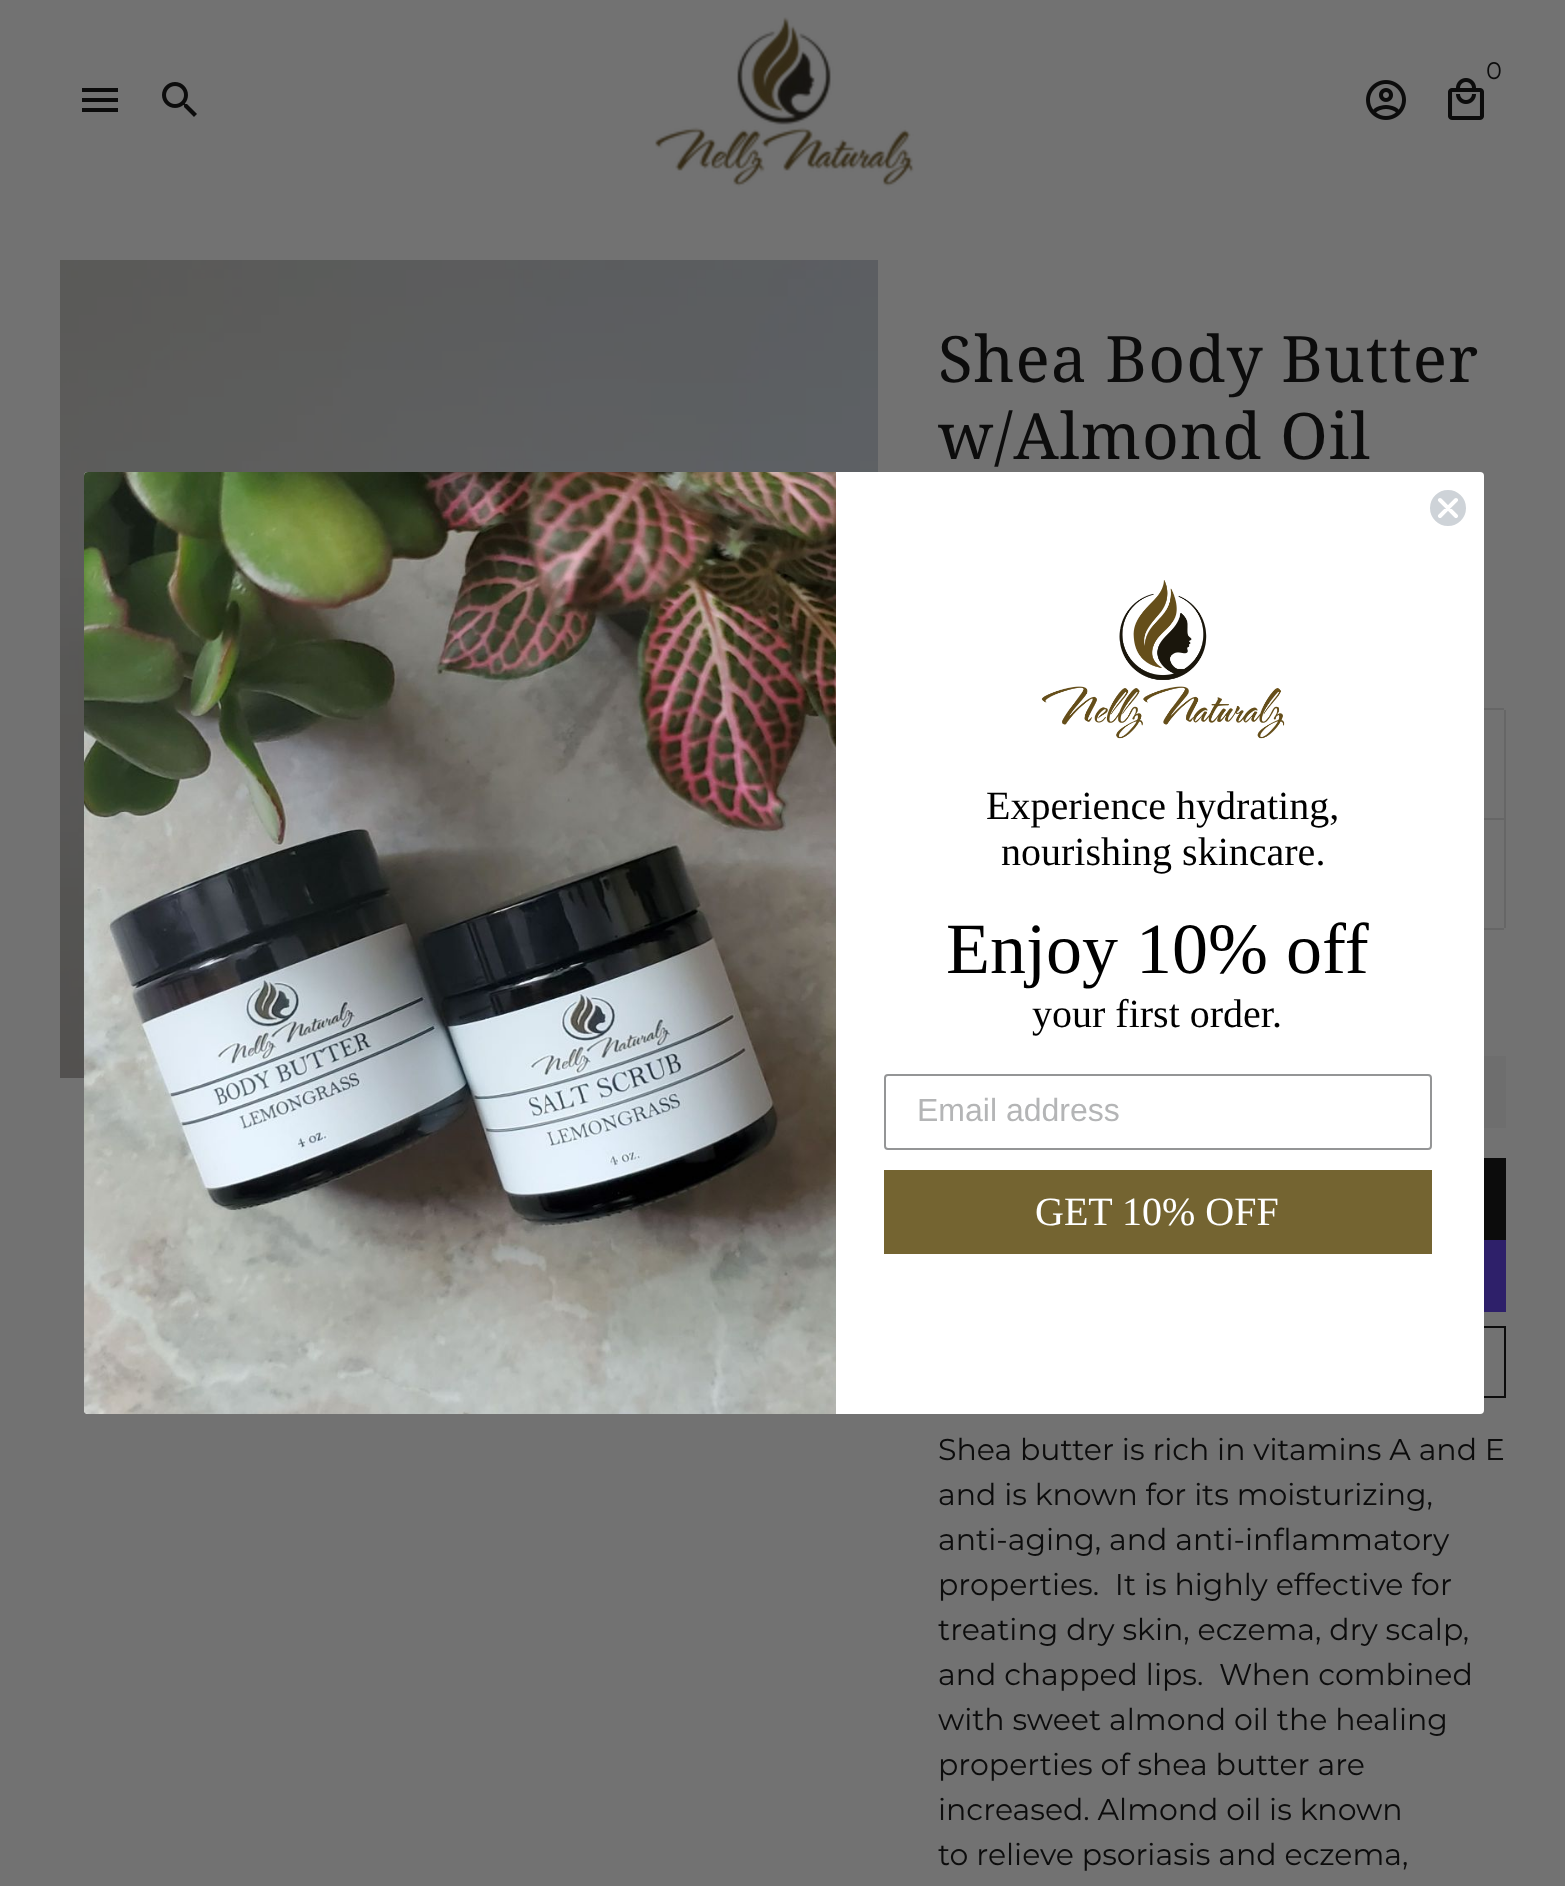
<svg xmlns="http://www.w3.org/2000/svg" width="1565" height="1886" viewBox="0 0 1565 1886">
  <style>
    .t1 { font: 24px Montserrat; fill: #0c0c0c; }
    .t2 { font: 64px Noto Serif; letter-spacing: 1px; fill: #0c0c0c; }
    .t3 { font: 30px Montserrat; fill: #0c0c0c; }
    .t4 { font: 40px Liberation Serif; fill: #000; }
    .t5 { font: 72px Liberation Serif; fill: #000; }
    .t6 { font: 32px Liberation Sans; fill: #b4b5b6; }
    .t7 { font: 40px Liberation Serif; fill: #fff; }
  </style>
  <rect width="100%" height="100%" fill="#727272"/>
  <image x="655" y="17" width="259" height="170" href="images/1.png"/>
  <text x="1486" y="79" class="t1">0</text>
  <image x="1448" y="78" width="36" height="42" href="images/2.png"/>
  <image x="1366" y="80" width="40" height="40" href="images/3.png"/>
  <path d="M82 112H118V108H82ZM82 102H118V98H82ZM82 88V92H118V88Z" fill="#0c0c0c"/>
  <image x="162" y="82" width="35" height="35" href="images/4.png"/>
  <image x="60" y="260" width="818" height="818" href="images/5.png"/>
  <text x="938" y="382" class="t2">Shea Body Butter</text>
  <text x="938" y="459" class="t2">w/Almond Oil</text>
  <rect x="1484" y="708" width="20" height="2" fill="#666"/>
  <rect x="1504" y="710" width="2" height="218" fill="#666"/>
  <rect x="1484" y="818" width="20" height="2" fill="#666"/>
  <rect x="1484" y="928" width="20" height="2" fill="#666"/>
  <rect x="1484" y="1056" width="22" height="72" fill="#6e6e6e"/>
  <rect x="1484" y="1158" width="22" height="82" fill="#0c0c0c"/>
  <rect x="1484" y="1240" width="22" height="72" fill="#2e206a"/>
  <rect x="939" y="1327" width="566" height="70" fill="none" stroke="#0c0c0c" stroke-width="2"/>
  <text x="938" y="1460" class="t3">Shea butter is rich in vitamins A and E</text>
  <text x="938" y="1505" class="t3">and is known for its moisturizing,</text>
  <text x="938" y="1550" class="t3">anti-aging, and anti-inflammatory</text>
  <text x="938" y="1595" class="t3" xml:space="preserve">properties.  It is highly effective for</text>
  <text x="938" y="1640" class="t3">treating dry skin, eczema, dry scalp,</text>
  <text x="938" y="1685" class="t3" xml:space="preserve">and chapped lips.  When combined</text>
  <text x="938" y="1730" class="t3">with sweet almond oil the healing</text>
  <text x="938" y="1775" class="t3">properties of shea butter are</text>
  <text x="938" y="1820" class="t3">increased. Almond oil is known</text>
  <text x="938" y="1865" class="t3">to relieve psoriasis and eczema,</text>
  <rect x="84" y="472" width="1400" height="942" rx="4" fill="#fff"/>
  <circle cx="1448" cy="508" r="19" fill="#ced3d8" stroke="#fff" stroke-width="2"/>
  <path d="M1440 500L1456 516M1440 516L1456 500Z" fill="none" stroke="#fff" stroke-width="4" stroke-linecap="round" stroke-linejoin="round"/>
  <image x="84" y="472" width="752" height="942" href="images/6.png"/>
  <image x="1041" y="580" width="244" height="159" href="images/7.png"/>
  <text x="986" y="819" class="t4">Experience hydrating,</text>
  <text x="1001" y="865" class="t4">nourishing skincare.</text>
  <text x="946" y="973" class="t5">Enjoy 10% off</text>
  <text x="1032" y="1027" class="t4">your first order.</text>
  <rect x="885" y="1075" width="546" height="74" rx="3" fill="none" stroke="#949596" stroke-width="2"/>
  <text x="917" y="1121" class="t6">Email address</text>
  <rect x="884" y="1170" width="548" height="84" fill="#746431"/>
  <text x="1035" y="1225" class="t7">GET 10% OFF</text>
</svg>
